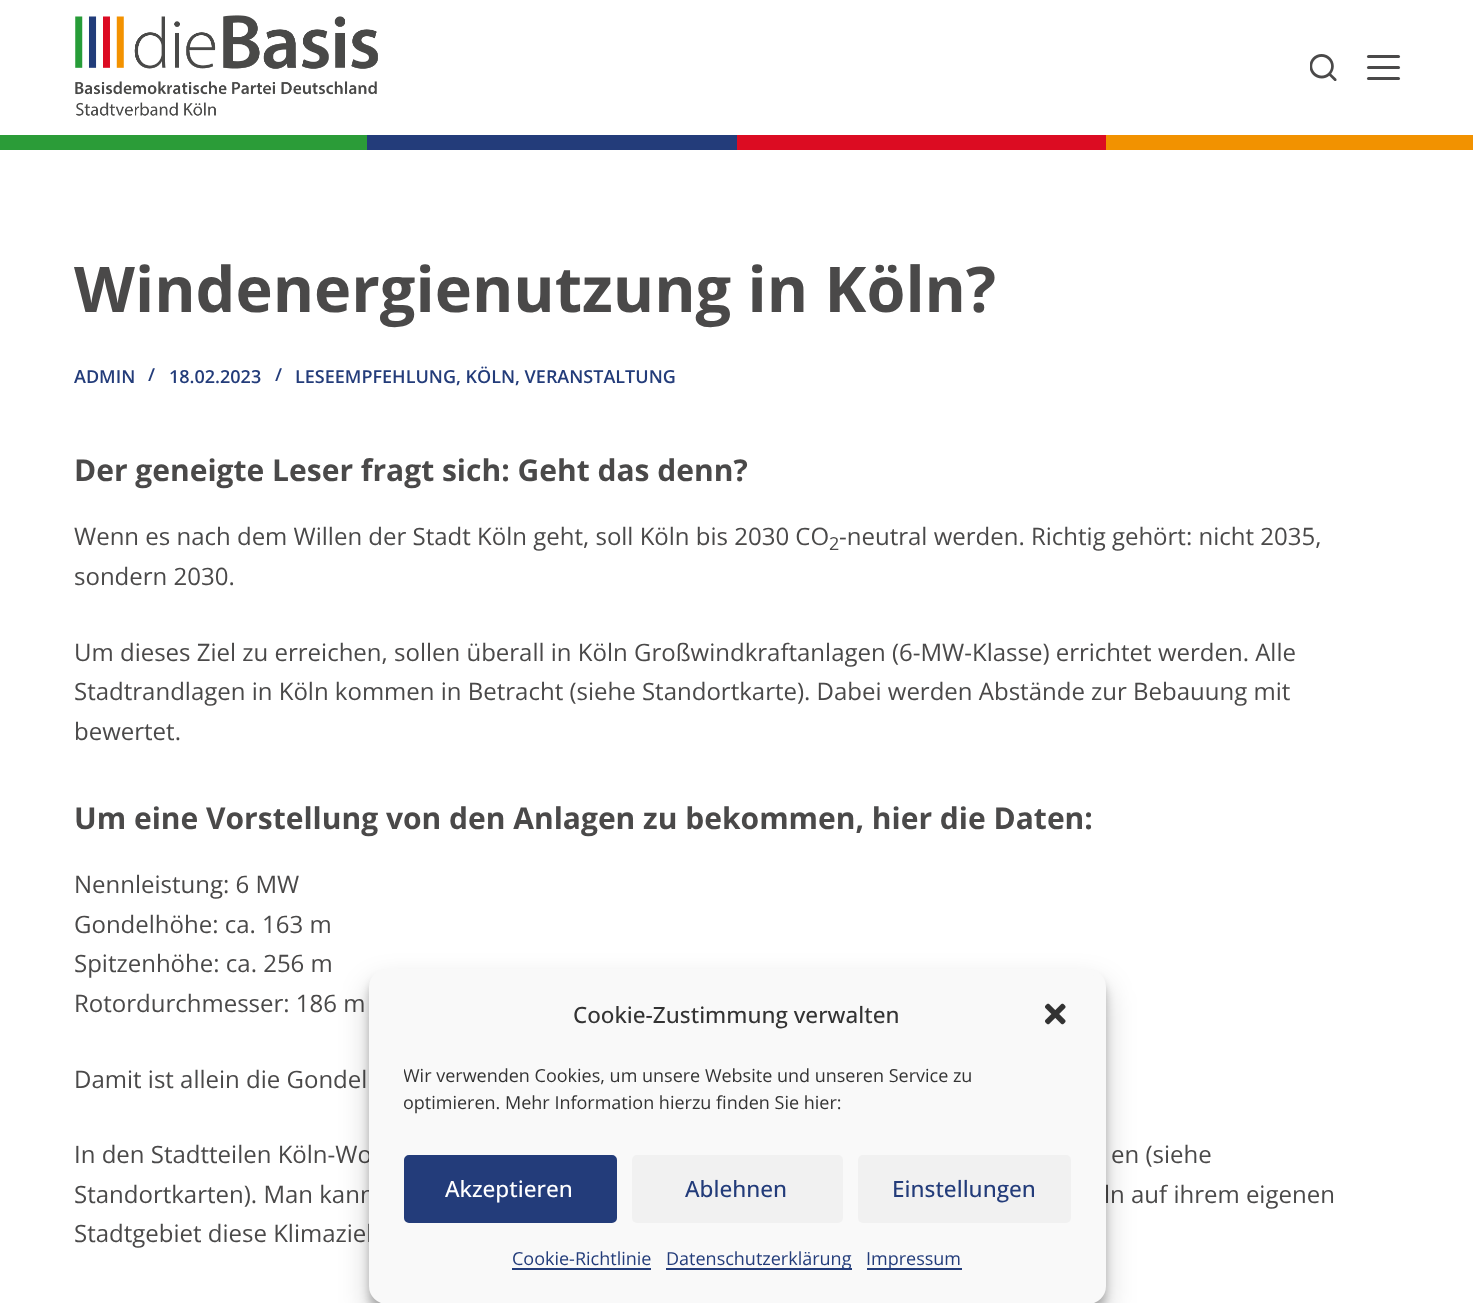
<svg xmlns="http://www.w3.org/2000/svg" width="1473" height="1303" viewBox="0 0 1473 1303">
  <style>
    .t1 { font: bold 63px Open Sans; fill: #4a4949; }
    .t2 { font: 600 18px Open Sans; fill: #233c7a; }
    .t3 { font: bold 30px Open Sans; fill: #4a4949; }
    .t4 { font: 24px Open Sans; fill: #4a4949; }
    .t5 { font: 18px Open Sans; fill: #4a4949; }
    .t6 { font: 500 22.5px Open Sans; fill: #333; }
    .t7 { font: 18px Open Sans; fill: #333; }
    .t8 { font: 500 22.5px Open Sans; fill: #fff; }
    .t9 { font: 500 22.5px Open Sans; fill: #233c7a; }
    .t10 { font: 18px Open Sans; fill: #233c7a; }
  </style>
  <defs>
    <clipPath id="clip1"><rect x="404" y="1064" width="667" height="61"/></clipPath>
  </defs>
  <rect width="100%" height="100%" fill="#fff"/>
  <image x="75" y="15" width="303" height="101" href="images/1.png"/>
  <image x="1310" y="54" width="27" height="27" href="images/2.png"/>
  <rect x="1367" y="55" width="33" height="3" rx="1.5" fill="#4a4949"/>
  <rect x="1367" y="66" width="33" height="3" rx="1.5" fill="#4a4949"/>
  <rect x="1367" y="77" width="33" height="3" rx="1.5" fill="#4a4949"/>
  <image x="0" y="135" width="1473" height="15" href="images/3.png"/>
  <text x="74" y="312" class="t1">Windenergienutzung in Köln?</text>
  <text x="74" y="383" class="t2">ADMIN</text>
  <text x="148" y="381" class="t2">/</text>
  <text x="169" y="383" class="t2">18.02.2023</text>
  <text x="275" y="381" class="t2">/</text>
  <text x="295" y="383" class="t2">LESEEMPFEHLUNG, KÖLN, VERANSTALTUNG</text>
  <text x="74" y="481" class="t3">Der geneigte Leser fragt sich: Geht das denn?</text>
  <text x="74" y="545" class="t4">Wenn es nach dem Willen der Stadt Köln geht, soll Köln bis 2030 CO</text>
  <text x="829" y="550" class="t5">2</text>
  <text x="839" y="545" class="t4">-neutral werden. Richtig gehört: nicht 2035,</text>
  <text x="74" y="585" class="t4">sondern 2030.</text>
  <text x="74" y="661" class="t4">Um dieses Ziel zu erreichen, sollen überall in Köln Großwindkraftanlagen (6-MW-Klasse) errichtet werden. Alle</text>
  <text x="74" y="700" class="t4">Stadtrandlagen in Köln kommen in Betracht (siehe Standortkarte). Dabei werden Abstände zur Bebauung mit</text>
  <text x="74" y="740" class="t4">bewertet.</text>
  <text x="74" y="829" class="t3">Um eine Vorstellung von den Anlagen zu bekommen, hier die Daten:</text>
  <text x="74" y="893" class="t4">Nennleistung: 6 MW</text>
  <text x="74" y="933" class="t4">Gondelhöhe: ca. 163 m</text>
  <text x="74" y="972" class="t4">Spitzenhöhe: ca. 256 m</text>
  <text x="74" y="1012" class="t4">Rotordurchmesser: 186 m</text>
  <text x="74" y="1088" class="t4">Damit ist allein die Gondel</text>
  <text x="74" y="1163" class="t4">In den Stadtteilen Köln-Wo</text>
  <text x="1111" y="1163" class="t4">en (siehe</text>
  <text x="74" y="1203" class="t4">Standortkarten). Man kann</text>
  <text x="1104" y="1203" class="t4">ln auf ihrem eigenen</text>
  <text x="74" y="1242" class="t4">Stadtgebiet diese Klimaziel</text>
  <rect x="369" y="978" width="737" height="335" rx="18" fill="#0000003b" filter="blur(4.5px)"/>
  <rect x="369" y="984" width="737" height="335" rx="18" fill="#00000030" filter="blur(15px)"/>
  <rect x="371.5" y="971.5" width="732" height="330" rx="15.5" fill="#f9f9f9" stroke="#f9f9f9" stroke-width="5"/>
  <text x="573" y="1023" class="t6">Cookie-Zustimmung verwalten</text>
  <image x="1045" y="1003" width="21" height="22" href="images/4.png"/>
  <g clip-path="url(#clip1)">
    <text x="403" y="1082" class="t7">Wir verwenden Cookies, um unsere Website und unseren Service zu</text>
    <text x="403" y="1109" class="t7">optimieren. Mehr Information hierzu finden Sie hier:</text>
  </g>
  <rect x="405" y="1156" width="211" height="66" rx="4" fill="#233c7a" stroke="#233c7a" stroke-width="2"/>
  <text x="445" y="1197" class="t8">Akzeptieren</text>
  <rect x="632" y="1155" width="211" height="68" rx="5" fill="#f1f1f1"/>
  <text x="685" y="1197" class="t9">Ablehnen</text>
  <rect x="858" y="1155" width="213" height="68" rx="5" fill="#f1f1f1"/>
  <text x="892" y="1197" class="t9">Einstellungen</text>
  <text x="512" y="1265" class="t10">Cookie-Richtlinie</text>
  <rect x="512" y="1268" width="139" height="2" fill="#233c7a"/>
  <rect x="666" y="1268" width="186" height="2" fill="#233c7a"/>
  <text x="666" y="1265" class="t10">Datenschutzerklärung</text>
  <rect x="867" y="1268" width="95" height="2" fill="#233c7a"/>
  <text x="866" y="1265" class="t10">Impressum</text>
</svg>
